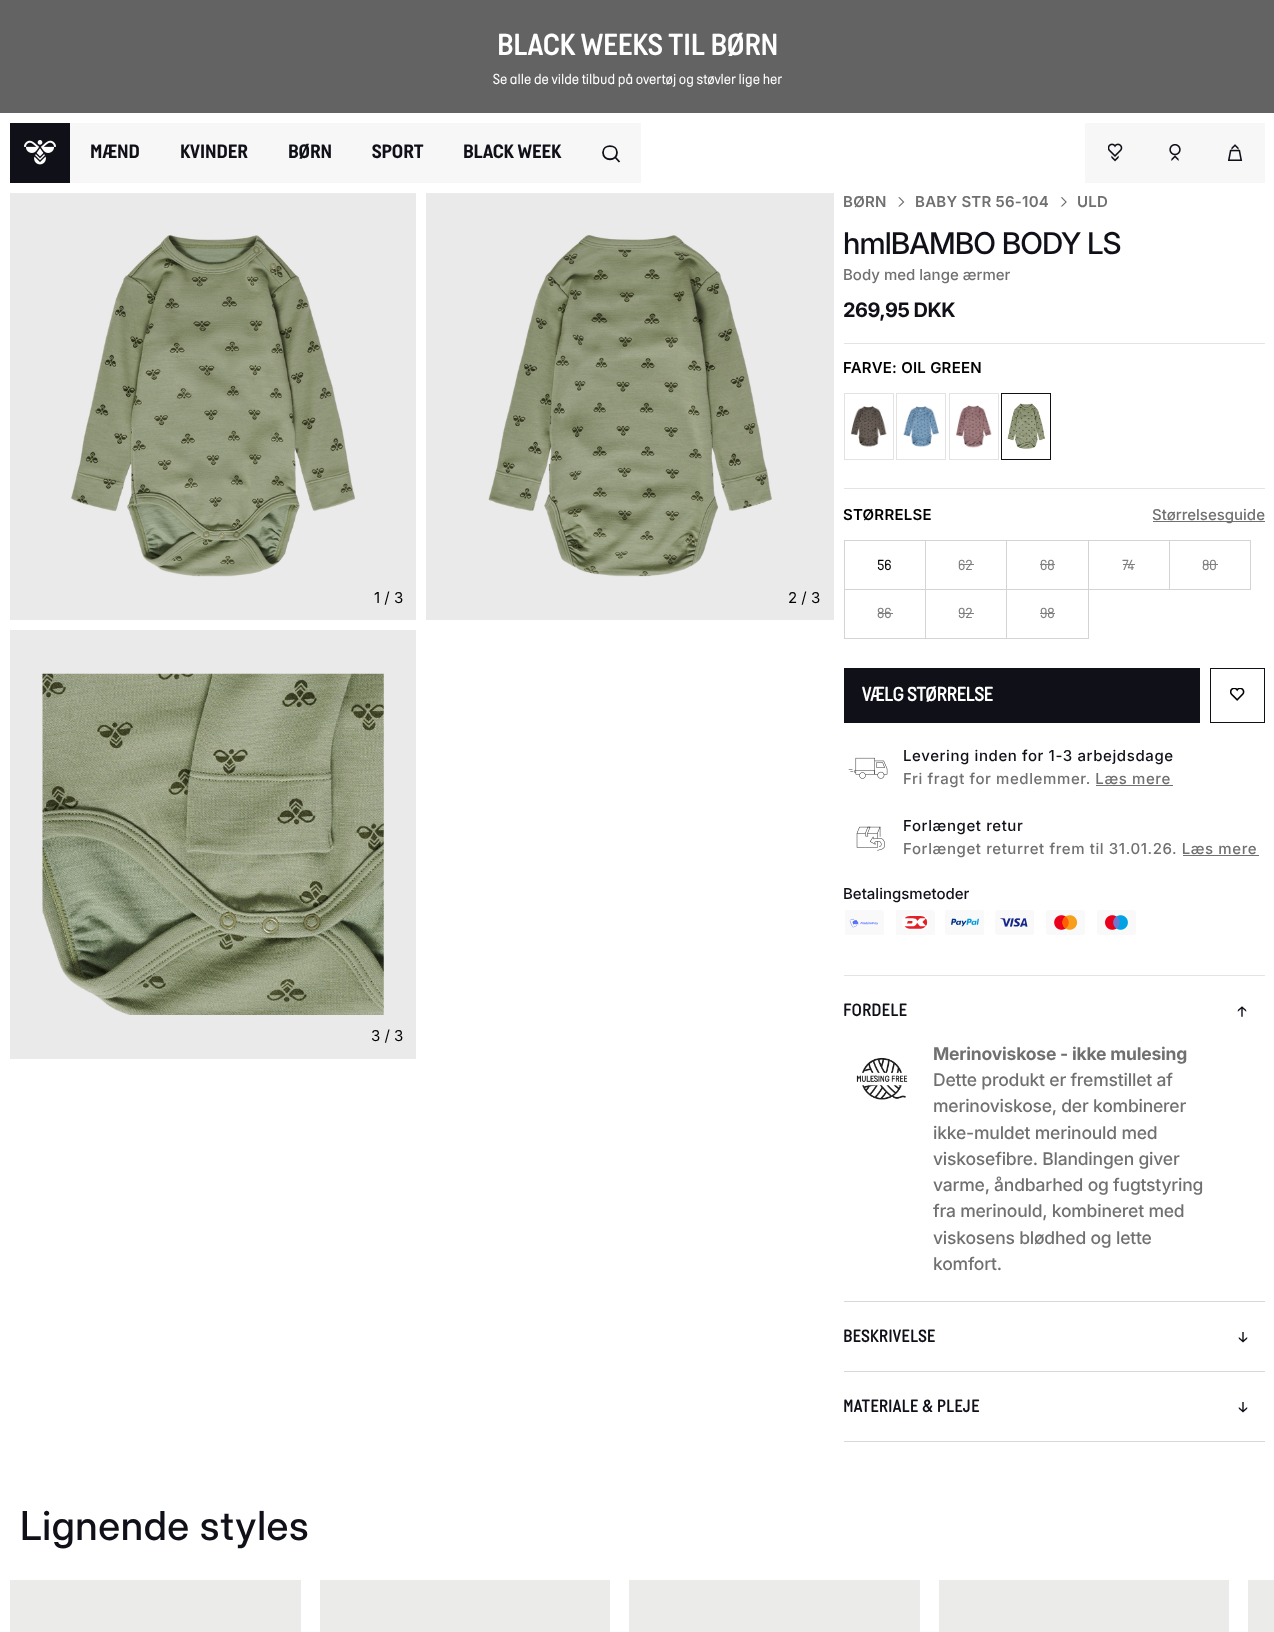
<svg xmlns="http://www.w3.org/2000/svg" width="1274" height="1632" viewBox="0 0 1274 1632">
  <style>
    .t1 { font: 600 31.25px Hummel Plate; fill: #fff; }
    .t2 { font: 15px Hummel Plate; fill: #fff; }
    .t3 { font: bold 20px 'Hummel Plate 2'; fill: #0f1018; }
    .t4 { font: 15px Inter; fill: #000; }
    .t5 { font: 600 15px Inter; letter-spacing: 0.25px; fill: #707070; }
    .t6 { font: 500 30px Inter; letter-spacing: -0.9px; fill: #0f1018; }
    .t7 { font: 500 15px 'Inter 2'; fill: #707070; }
    .t8 { font: bold 20px Inter; letter-spacing: -0.5px; fill: #0f1018; }
    .t9 { font: 600 15px Inter; letter-spacing: 0.25px; fill: #000; }
    .t10 { font: 15px Hummel Plate; fill: #000; }
    .t11 { font: 15px Hummel Plate; fill: #808080; }
    .t12 { font: bold 20px Hummel Plate; fill: #fff; }
    .t13 { font: 500 15px 'Inter 2'; letter-spacing: 0.6px; fill: #0f1018; }
    .t14 { font: 500 15px 'Inter 2'; letter-spacing: 0.6px; fill: #707070; }
    .t15 { font: 500 15px 'Inter 2'; fill: #0f1018; }
    .t16 { font: bold 17.5px Hummel Plate; letter-spacing: 0.6px; fill: #0f1018; }
    .t17 { font: bold 17.5px 'Inter 2'; letter-spacing: -0.2px; fill: #707070; }
    .t18 { font: 500 17.5px 'Inter 2'; letter-spacing: -0.2px; fill: #707070; }
    .t19 { font: 500 40px 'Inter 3'; letter-spacing: 0.6px; fill: #0f1018; }
  </style>
  <rect width="100%" height="100%" fill="#fff"/>
  <rect x="0" y="0" width="1274" height="113" fill="#636363"/>
  <text x="497" y="55" class="t1">BLACK WEEKS TIL BØRN</text>
  <text x="493" y="84" class="t2">Se alle de vilde tilbud på overtøj og støvler lige her</text>
  <rect x="10" y="123" width="60" height="60" fill="#0f1018"/>
  <image x="24" y="140" width="32" height="25" href="images/1.png"/>
  <rect x="70" y="123" width="571" height="60" fill="#f7f7f7"/>
  <text x="90" y="158" class="t3">MÆND</text>
  <text x="180" y="158" class="t3">KVINDER</text>
  <text x="288" y="158" class="t3">BØRN</text>
  <text x="372" y="158" class="t3">SPORT</text>
  <text x="463" y="158" class="t3">BLACK WEEK</text>
  <path d="M619.5 162L615 157M617 152.5C617 161.5 603 161.5 603 152.5C603 144 617 144 617 152.5Z" fill="none" stroke="#0f1018" stroke-width="1.8"/>
  <rect x="1085" y="123" width="180" height="60" fill="#f7f7f7"/>
  <image x="1108" y="143" width="15" height="19" href="images/2.png"/>
  <image x="1169" y="144" width="12" height="17" href="images/3.png"/>
  <image x="1228" y="144" width="15" height="17" href="images/4.png"/>
  <rect x="10" y="193" width="406" height="427" fill="#eaeaea"/>
  <image x="71" y="235" width="284" height="342" href="images/5.png"/>
  <text x="374" y="603" class="t4">1 / 3</text>
  <rect x="426" y="193" width="408" height="427" fill="#eaeaea"/>
  <image x="488" y="235" width="284" height="342" href="images/6.png"/>
  <text x="788" y="603" class="t4">2 / 3</text>
  <rect x="10" y="630" width="406" height="429" fill="#eaeaea"/>
  <image x="42" y="673" width="342" height="342" href="images/7.png"/>
  <text x="371" y="1041" class="t4">3 / 3</text>
  <text x="843" y="207" class="t5">BØRN</text>
  <image x="898" y="197" width="7" height="10" href="images/8.png"/>
  <text x="915" y="207" class="t5">BABY STR 56-104</text>
  <image x="1060" y="197" width="7" height="10" href="images/9.png"/>
  <text x="1077" y="207" class="t5">ULD</text>
  <text x="843" y="254" class="t6">hmlBAMBO BODY LS</text>
  <text x="843" y="280" class="t7">Body med lange ærmer</text>
  <text x="843" y="317" class="t8">269,95 DKK</text>
  <rect x="844" y="343" width="421" height="1" fill="#e3e3e3"/>
  <text x="843" y="373" class="t9">FARVE: OIL GREEN</text>
  <rect x="844.5" y="393.5" width="49" height="66" fill="none" stroke="#e3e3e3"/>
  <image x="851" y="406" width="36" height="41" href="images/10.png"/>
  <rect x="896.5" y="393.5" width="49" height="66" fill="none" stroke="#e3e3e3"/>
  <image x="903" y="406" width="36" height="41" href="images/11.png"/>
  <rect x="949.5" y="393.5" width="49" height="66" fill="none" stroke="#e3e3e3"/>
  <image x="956" y="405" width="36" height="43" href="images/12.png"/>
  <rect x="1001.5" y="393.5" width="49" height="66" fill="none" stroke="#0f1018"/>
  <image x="1007" y="403" width="39" height="46" href="images/13.png"/>
  <rect x="844" y="488" width="421" height="1" fill="#e3e3e3"/>
  <text x="843" y="520" class="t9">STØRRELSE</text>
  <rect x="1153" y="521" width="112" height="1" fill="#707070"/>
  <text x="1152" y="520" class="t7">Størrelsesguide</text>
  <rect x="844.5" y="540.5" width="81" height="49" fill="none" stroke="#d4d4d4"/>
  <text x="877" y="570" class="t10">56</text>
  <rect x="925.5" y="540.5" width="82" height="49" fill="none" stroke="#d4d4d4"/>
  <text x="958" y="570" class="t11">62</text>
  <rect x="959" y="564" width="15" height="1" fill="#808080"/>
  <rect x="1007" y="541" width="1" height="48" fill="#fff"/>
  <rect x="1006.5" y="540.5" width="82" height="49" fill="none" stroke="#d4d4d4"/>
  <text x="1040" y="570" class="t11">68</text>
  <rect x="1040" y="564" width="15" height="1" fill="#808080"/>
  <rect x="1088.5" y="540.5" width="81" height="49" fill="none" stroke="#d4d4d4"/>
  <text x="1122" y="570" class="t11">74</text>
  <rect x="1123" y="564" width="12" height="1" fill="#808080"/>
  <rect x="1169.5" y="540.5" width="81" height="49" fill="none" stroke="#d4d4d4"/>
  <text x="1202" y="570" class="t11">80</text>
  <rect x="1203" y="564" width="15" height="1" fill="#808080"/>
  <rect x="844.5" y="589.5" width="81" height="49" fill="none" stroke="#d4d4d4"/>
  <text x="877" y="618" class="t11">86</text>
  <rect x="878" y="613" width="15" height="1" fill="#808080"/>
  <rect x="925.5" y="589.5" width="82" height="49" fill="none" stroke="#d4d4d4"/>
  <text x="958" y="618" class="t11">92</text>
  <rect x="959" y="613" width="15" height="1" fill="#808080"/>
  <rect x="1007" y="590" width="1" height="48" fill="#fff"/>
  <rect x="1006.5" y="589.5" width="82" height="49" fill="none" stroke="#d4d4d4"/>
  <text x="1040" y="618" class="t11">98</text>
  <rect x="1040" y="613" width="15" height="1" fill="#808080"/>
  <rect x="844" y="668" width="356" height="55" fill="#0f1018"/>
  <text x="862" y="701" class="t12">VÆLG STØRRELSE</text>
  <rect x="1210.5" y="668.5" width="54" height="54" fill="none" stroke="#0f1018"/>
  <image x="1230" y="688" width="15" height="13" href="images/14.png"/>
  <image x="848" y="757" width="40" height="22" href="images/15.png"/>
  <text x="903" y="761" class="t13">Levering inden for 1-3 arbejdsdage</text>
  <text x="903" y="784" class="t14">Fri fragt for medlemmer. Læs mere</text>
  <rect x="1096" y="785" width="77" height="1" fill="#707070"/>
  <image x="856" y="826" width="29" height="25" href="images/16.png"/>
  <text x="903" y="831" class="t13">Forlænget retur</text>
  <text x="903" y="854" class="t14">Forlænget returret frem til 31.01.26. Læs mere</text>
  <rect x="1183" y="855" width="76" height="1" fill="#707070"/>
  <text x="843" y="899" class="t15">Betalingsmetoder</text>
  <image x="845" y="910" width="39" height="25" href="images/17.png"/>
  <image x="896" y="910" width="39" height="25" href="images/18.png"/>
  <image x="945" y="910" width="39" height="25" href="images/19.png"/>
  <image x="995" y="910" width="39" height="25" href="images/20.png"/>
  <image x="1046" y="910" width="39" height="25" href="images/21.png"/>
  <image x="1097" y="910" width="39" height="25" href="images/22.png"/>
  <rect x="844" y="975" width="421" height="1" fill="#e3e3e3"/>
  <text x="843" y="1016" class="t16">FORDELE</text>
  <image x="1237" y="1006" width="10" height="11" href="images/23.png"/>
  <image x="856" y="1057" width="52" height="43" href="images/24.png"/>
  <text x="933" y="1060" class="t17">Merinoviskose - ikke mulesing</text>
  <text x="933" y="1086" class="t18">Dette produkt er fremstillet af</text>
  <text x="933" y="1112" class="t18">merinoviskose, der kombinerer</text>
  <text x="933" y="1139" class="t18">ikke-muldet merinould med</text>
  <text x="933" y="1165" class="t18">viskosefibre. Blandingen giver</text>
  <text x="933" y="1191" class="t18">varme, åndbarhed og fugtstyring</text>
  <text x="933" y="1217" class="t18">fra merinould, kombineret med</text>
  <text x="933" y="1244" class="t18">viskosens blødhed og lette</text>
  <text x="933" y="1270" class="t18">komfort.</text>
  <rect x="844" y="1301" width="421" height="1" fill="#d8d8d8"/>
  <rect x="844" y="1371" width="421" height="1" fill="#d8d8d8"/>
  <text x="843" y="1342" class="t16">BESKRIVELSE</text>
  <image x="1238" y="1332" width="10" height="11" href="images/25.png"/>
  <rect x="844" y="1441" width="421" height="1" fill="#d8d8d8"/>
  <text x="843" y="1412" class="t16">MATERIALE &amp; PLEJE</text>
  <image x="1238" y="1402" width="10" height="11" href="images/25.png"/>
  <text x="20" y="1540" class="t19">Lignende styles</text>
  <rect x="10" y="1580" width="291" height="52" fill="#ebebea"/>
  <rect x="320" y="1580" width="290" height="52" fill="#ebebea"/>
  <rect x="629" y="1580" width="291" height="52" fill="#ebebea"/>
  <rect x="939" y="1580" width="290" height="52" fill="#ebebea"/>
  <rect x="1248" y="1580" width="26" height="52" fill="#ebebea"/>
</svg>
